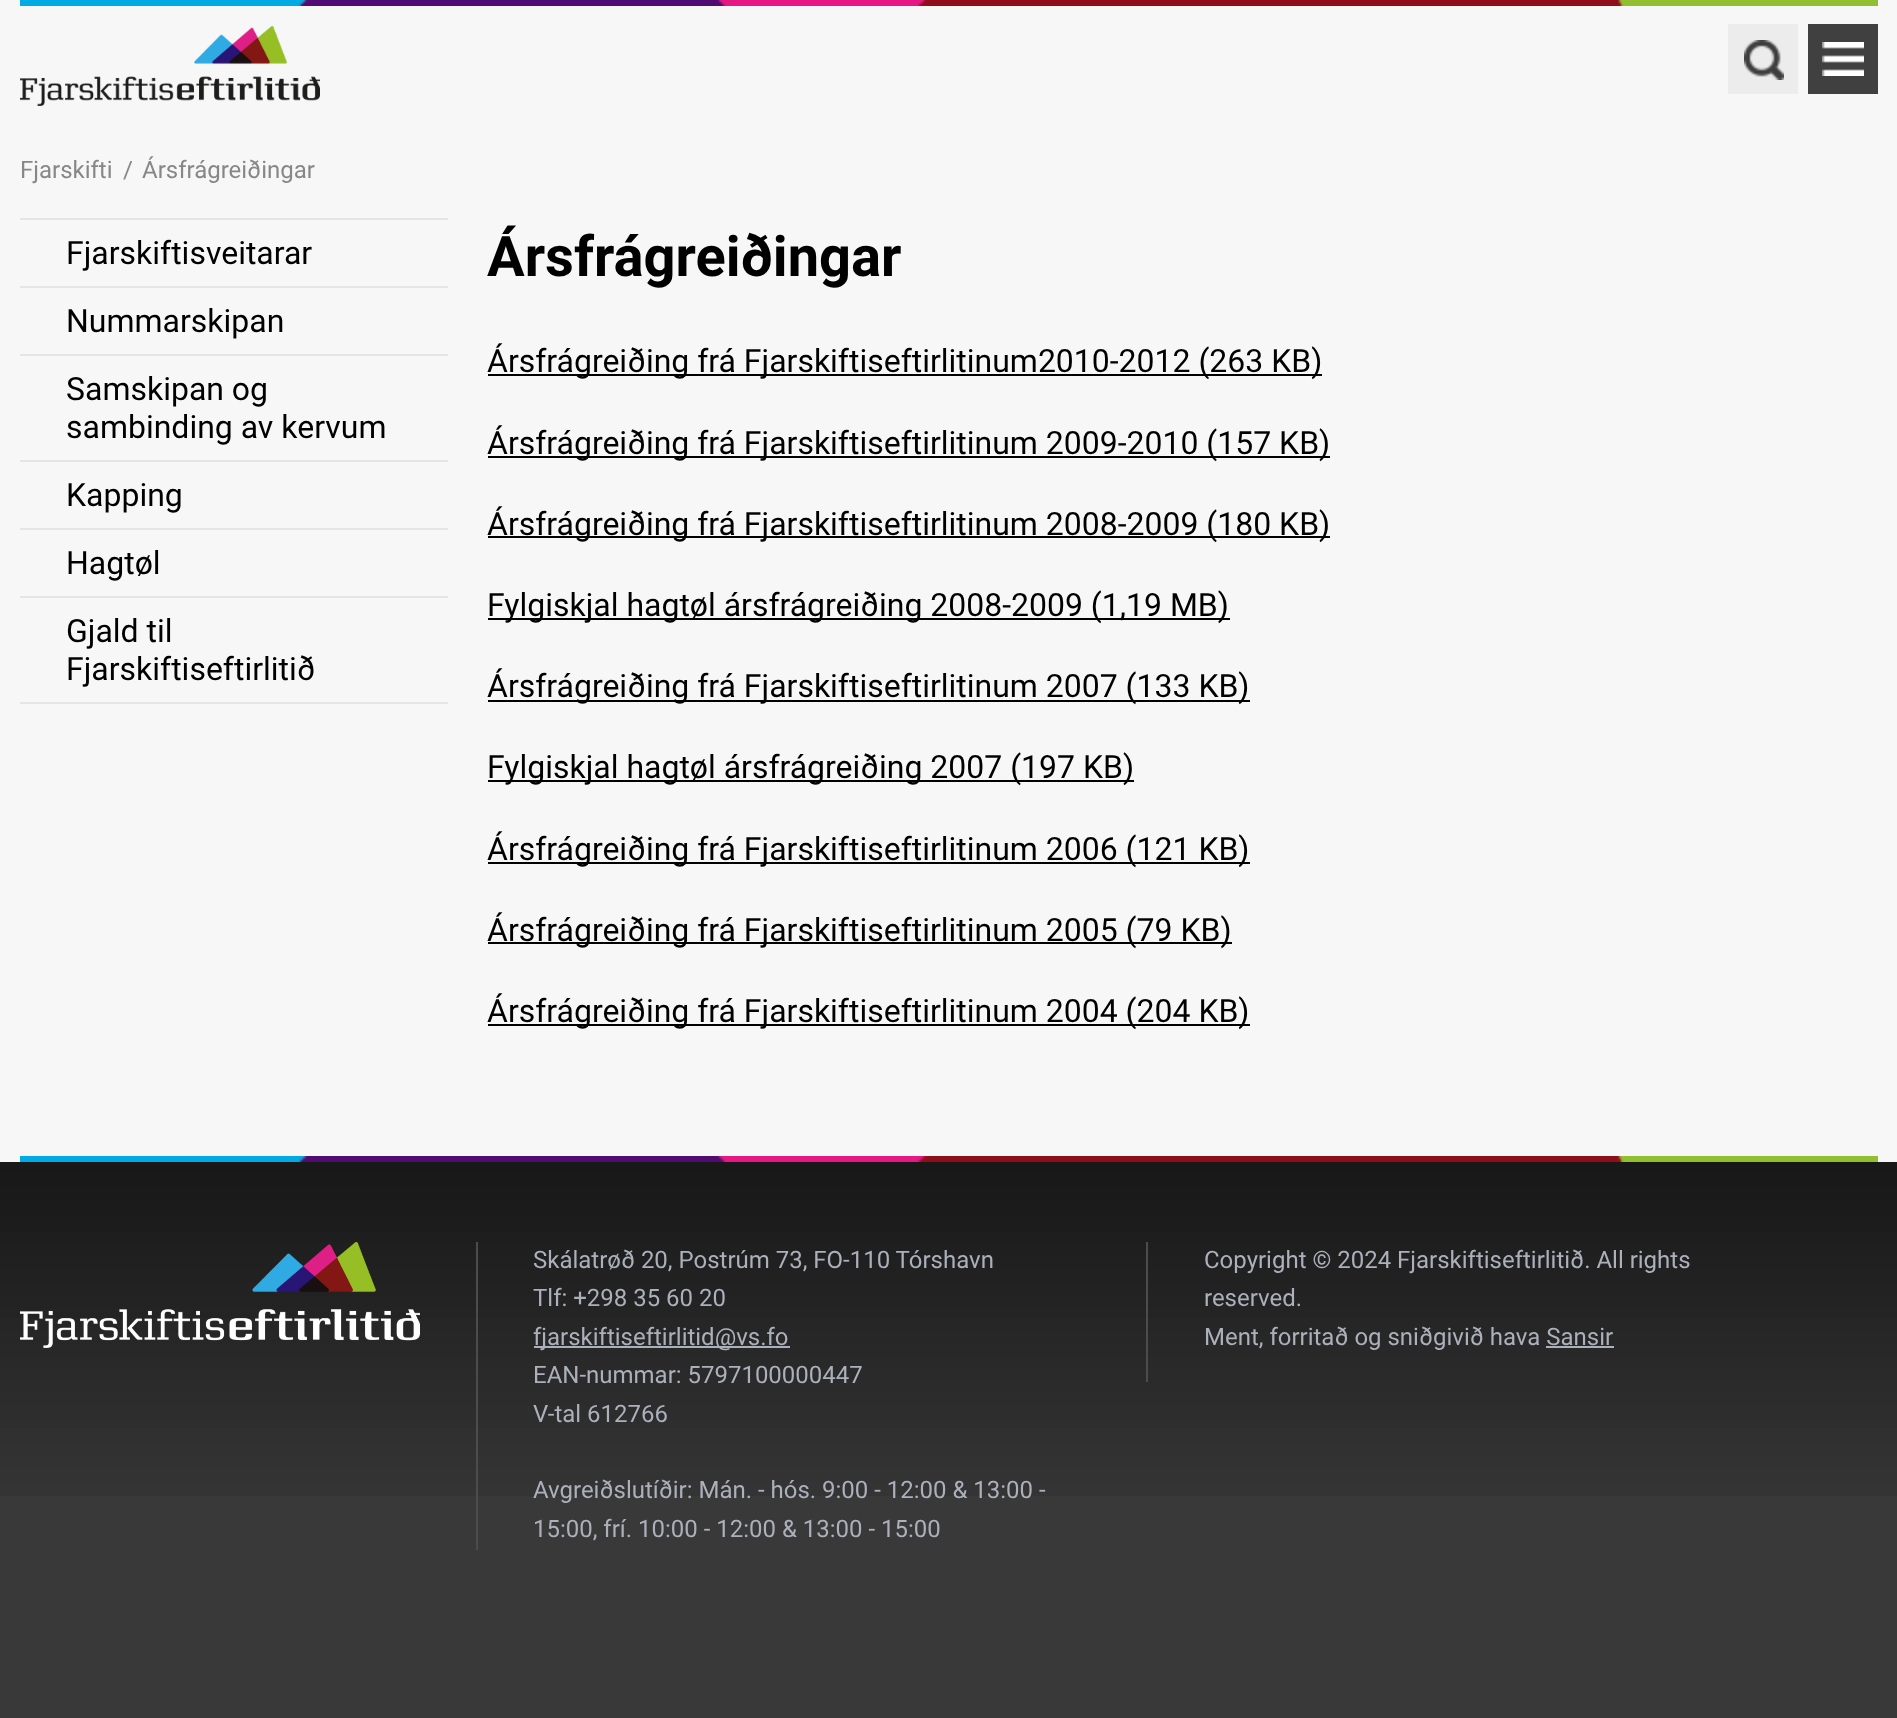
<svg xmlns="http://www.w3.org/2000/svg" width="1897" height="1718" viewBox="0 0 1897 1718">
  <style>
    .t1 { font: 24px Roboto; fill: #878787; }
    .t2 { font: 32px Roboto; fill: #000; }
    .t3 { font: bold 56px Roboto; fill: #000; }
    .t4 { font: 24px Roboto; fill: #abb0bb; }
  </style>
  <rect width="100%" height="100%" fill="#393939"/>
  <rect x="0" y="0" width="1897" height="1162" fill="#f7f7f7"/>
  <image x="20" y="0" width="1858" height="6" href="images/1.png"/>
  <image x="20" y="26" width="300" height="80" href="images/2.png"/>
  <rect x="1728" y="24" width="70" height="70" fill="#ececec"/>
  <image x="1744" y="40" width="40" height="40" href="images/3.png"/>
  <rect x="1808" y="24" width="70" height="70" fill="#404040"/>
  <image x="1822" y="42" width="42" height="34" href="images/4.png"/>
  <image x="20" y="1156" width="1858" height="6" href="images/1.png"/>
  <text x="20" y="178" class="t1">Fjarskifti</text>
  <text x="123" y="178" class="t1">/</text>
  <text x="142" y="178" class="t1">Ársfrágreiðingar</text>
  <rect x="20" y="218" width="428" height="2" fill="#e5e5e5"/>
  <text x="66" y="264" class="t2">Fjarskiftisveitarar</text>
  <rect x="20" y="286" width="428" height="2" fill="#e5e5e5"/>
  <text x="66" y="332" class="t2">Nummarskipan</text>
  <rect x="20" y="354" width="428" height="2" fill="#e5e5e5"/>
  <text x="66" y="400" class="t2">Samskipan og</text>
  <text x="66" y="438" class="t2">sambinding av kervum</text>
  <rect x="20" y="460" width="428" height="2" fill="#e5e5e5"/>
  <text x="66" y="506" class="t2">Kapping</text>
  <rect x="20" y="528" width="428" height="2" fill="#e5e5e5"/>
  <text x="66" y="574" class="t2">Hagtøl</text>
  <rect x="20" y="596" width="428" height="2" fill="#e5e5e5"/>
  <rect x="20" y="702" width="428" height="2" fill="#e5e5e5"/>
  <text x="66" y="642" class="t2">Gjald til</text>
  <text x="66" y="680" class="t2">Fjarskiftiseftirlitið</text>
  <text x="487" y="276" class="t3">Ársfrágreiðingar</text>
  <rect x="488" y="374" width="834" height="2" fill="#000"/>
  <text x="487" y="372" class="t2">Ársfrágreiðing frá Fjarskiftiseftirlitinum2010-2012 (263 KB)</text>
  <rect x="488" y="456" width="842" height="2" fill="#000"/>
  <text x="487" y="454" class="t2">Ársfrágreiðing frá Fjarskiftiseftirlitinum 2009-2010 (157 KB)</text>
  <rect x="488" y="536" width="842" height="2" fill="#000"/>
  <text x="487" y="535" class="t2">Ársfrágreiðing frá Fjarskiftiseftirlitinum 2008-2009 (180 KB)</text>
  <rect x="488" y="618" width="742" height="2" fill="#000"/>
  <text x="487" y="616" class="t2">Fylgiskjal hagtøl ársfrágreiðing 2008-2009 (1,19 MB)</text>
  <rect x="488" y="700" width="762" height="2" fill="#000"/>
  <text x="487" y="697" class="t2">Ársfrágreiðing frá Fjarskiftiseftirlitinum 2007 (133 KB)</text>
  <rect x="488" y="780" width="646" height="2" fill="#000"/>
  <text x="487" y="778" class="t2">Fylgiskjal hagtøl ársfrágreiðing 2007 (197 KB)</text>
  <rect x="488" y="862" width="762" height="2" fill="#000"/>
  <text x="487" y="860" class="t2">Ársfrágreiðing frá Fjarskiftiseftirlitinum 2006 (121 KB)</text>
  <rect x="488" y="942" width="744" height="2" fill="#000"/>
  <text x="487" y="941" class="t2">Ársfrágreiðing frá Fjarskiftiseftirlitinum 2005 (79 KB)</text>
  <rect x="488" y="1024" width="762" height="2" fill="#000"/>
  <text x="487" y="1022" class="t2">Ársfrágreiðing frá Fjarskiftiseftirlitinum 2004 (204 KB)</text>
  <image x="0" y="1162" width="1897" height="334" href="images/5.png"/>
  <image x="20" y="1242" width="400" height="106" href="images/6.png"/>
  <rect x="476" y="1242" width="2" height="308" fill="#4c4c4c"/>
  <text x="533" y="1268" class="t4">Skálatrøð 20, Postrúm 73, FO-110 Tórshavn</text>
  <text x="533" y="1306" class="t4">Tlf: +298 35 60 20</text>
  <rect x="534" y="1346" width="256" height="2" fill="#abb0bb"/>
  <text x="533" y="1345" class="t4">fjarskiftiseftirlitid@vs.fo</text>
  <text x="533" y="1383" class="t4">EAN-nummar: 5797100000447</text>
  <text x="533" y="1422" class="t4">V-tal 612766</text>
  <text x="533" y="1498" class="t4">Avgreiðslutíðir: Mán. - hós. 9:00 - 12:00 &amp; 13:00 -</text>
  <text x="533" y="1537" class="t4">15:00, frí. 10:00 - 12:00 &amp; 13:00 - 15:00</text>
  <rect x="1146" y="1242" width="2" height="140" fill="#4c4c4c"/>
  <text x="1204" y="1268" class="t4">Copyright © 2024 Fjarskiftiseftirlitið. All rights</text>
  <text x="1204" y="1306" class="t4">reserved.</text>
  <text x="1204" y="1345" class="t4">Ment, forritað og sniðgivið hava Sansir</text>
  <rect x="1546" y="1346" width="68" height="2" fill="#abb0bb"/>
</svg>
